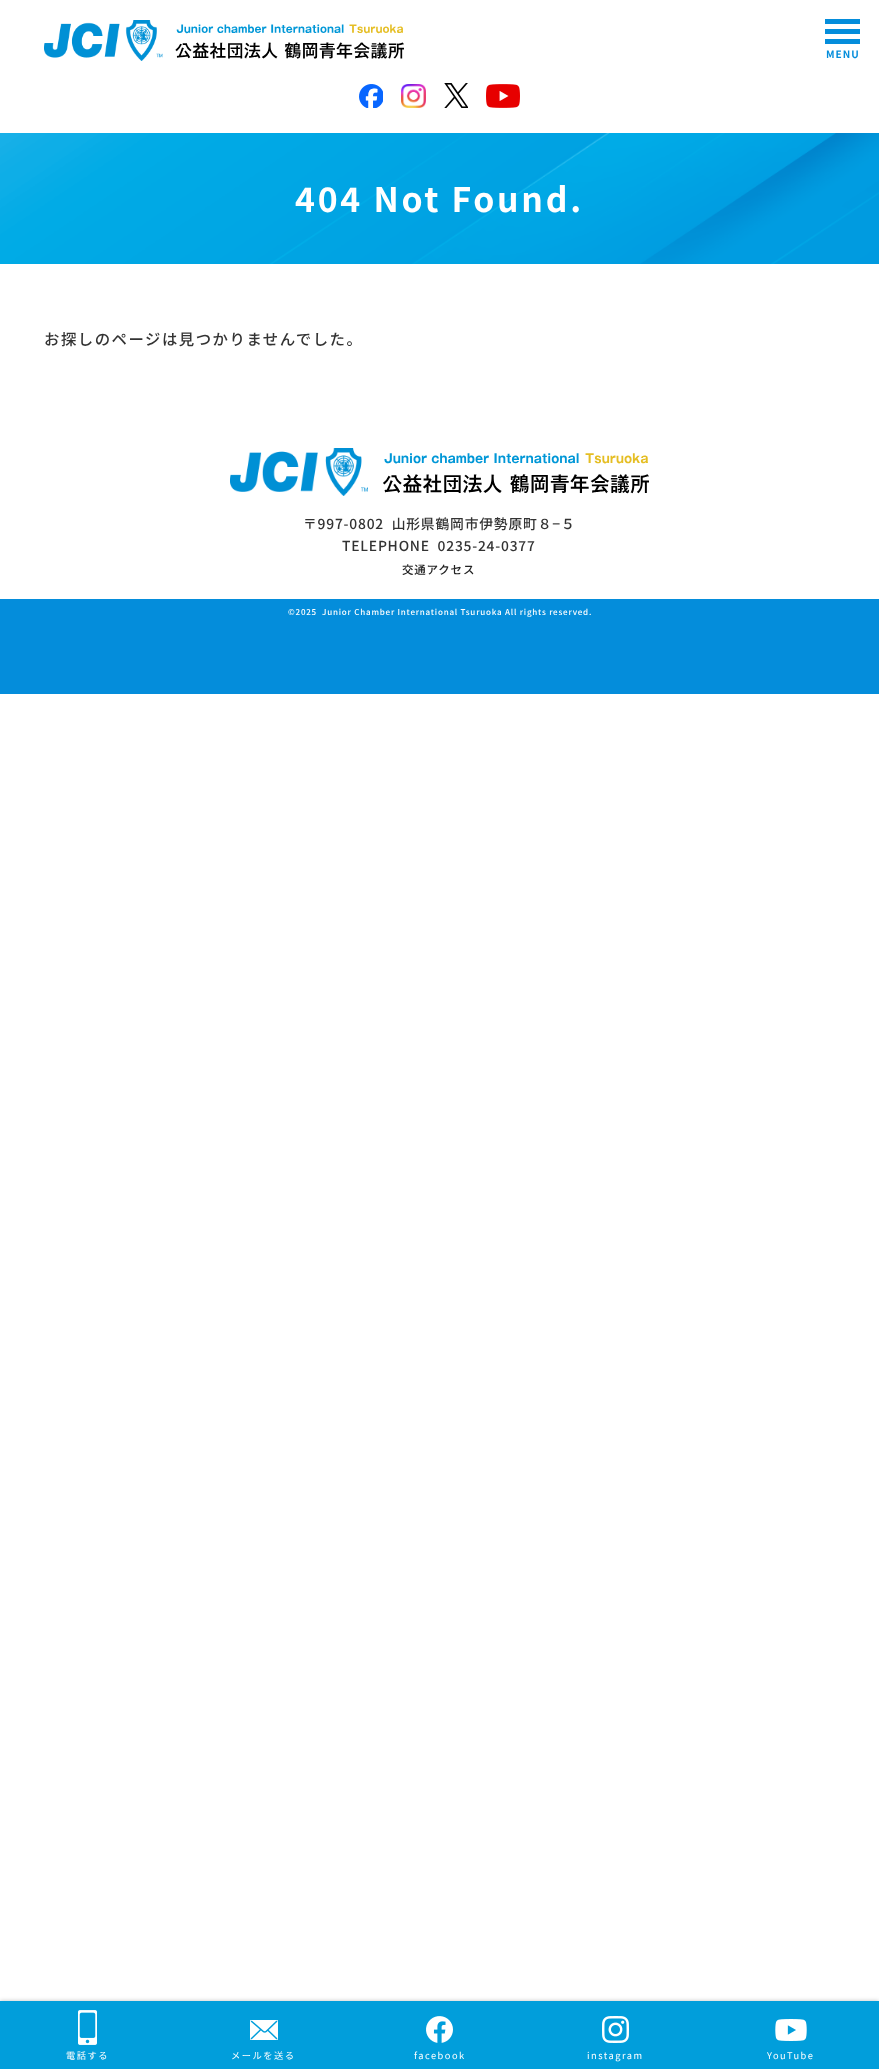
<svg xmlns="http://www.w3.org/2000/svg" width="879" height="2069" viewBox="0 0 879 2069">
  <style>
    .t1 { font: bold 10px Noto Sans JP; letter-spacing: 1px; fill: #048ddb; }
    .t2 { font: bold 33.75px Noto Sans JP; letter-spacing: 2.75px; fill: #fff; }
    .t3 { font: 500 15.4px Noto Sans JP; letter-spacing: 1.5px; fill: #333; }
    .t4 { font: 500 13.8px Noto Sans JP; letter-spacing: 0.8px; fill: #333; }
    .t5 { font: 500 11.5px Noto Sans JP; letter-spacing: 0.8px; fill: #222; }
    .t6 { font: 500 8px Noto Sans JP; letter-spacing: 0.8px; fill: #fff; }
    .t7 { font: 9.25px Noto Sans JP; letter-spacing: 1.5px; fill: #fff; }
  </style>
  <rect width="100%" height="100%" fill="#fff"/>
  <image x="44" y="20" width="360" height="41" href="images/1.png"/>
  <rect x="825" y="19" width="35" height="5" fill="#048ddb"/>
  <rect x="825" y="29" width="35" height="5" fill="#048ddb"/>
  <rect x="825" y="39" width="35" height="5" fill="#048ddb"/>
  <text x="826" y="58" class="t1">MENU</text>
  <image x="359" y="84" width="24" height="24" href="images/2.png"/>
  <image x="401" y="84" width="25" height="24" href="images/3.png"/>
  <image x="444" y="83" width="24" height="25" href="images/4.png"/>
  <image x="486" y="84" width="34" height="24" href="images/5.png"/>
  <image x="0" y="133" width="879" height="131" href="images/6.png"/>
  <text x="295" y="212" class="t2">404 Not Found.</text>
  <text x="44" y="345" class="t3">お探しのページは見つかりませんでした。</text>
  <image x="230" y="448" width="419" height="48" href="images/7.png"/>
  <text x="303" y="529" class="t4">〒997-0802 山形県鶴岡市伊勢原町８−５</text>
  <text x="342" y="551" class="t4">TELEPHONE 0235-24-0377</text>
  <text x="402" y="574" class="t5">交通アクセス</text>
  <rect x="0" y="599" width="879" height="95" fill="#048ddb"/>
  <text x="288" y="615" class="t6">©2025</text>
  <text x="322" y="615" class="t6">Junior Chamber International Tsuruoka All rights reserved.</text>
  <rect x="0" y="2001" width="879" height="68" fill="#00000040" filter="blur(2px)"/>
  <rect x="0" y="2001" width="879" height="68" fill="#019edb"/>
  <image x="78" y="2010" width="19" height="35" href="images/8.png"/>
  <text x="66" y="2059" class="t7">電話する</text>
  <image x="250" y="2020" width="28" height="20" href="images/9.png"/>
  <text x="231" y="2059" class="t7">メールを送る</text>
  <image x="426" y="2016" width="27" height="27" href="images/10.png"/>
  <text x="414" y="2059" class="t7">facebook</text>
  <image x="602" y="2016" width="27" height="27" href="images/11.png"/>
  <text x="587" y="2059" class="t7">instagram</text>
  <image x="775" y="2019" width="32" height="22" href="images/12.png"/>
  <text x="767" y="2059" class="t7">YouTube</text>
</svg>
